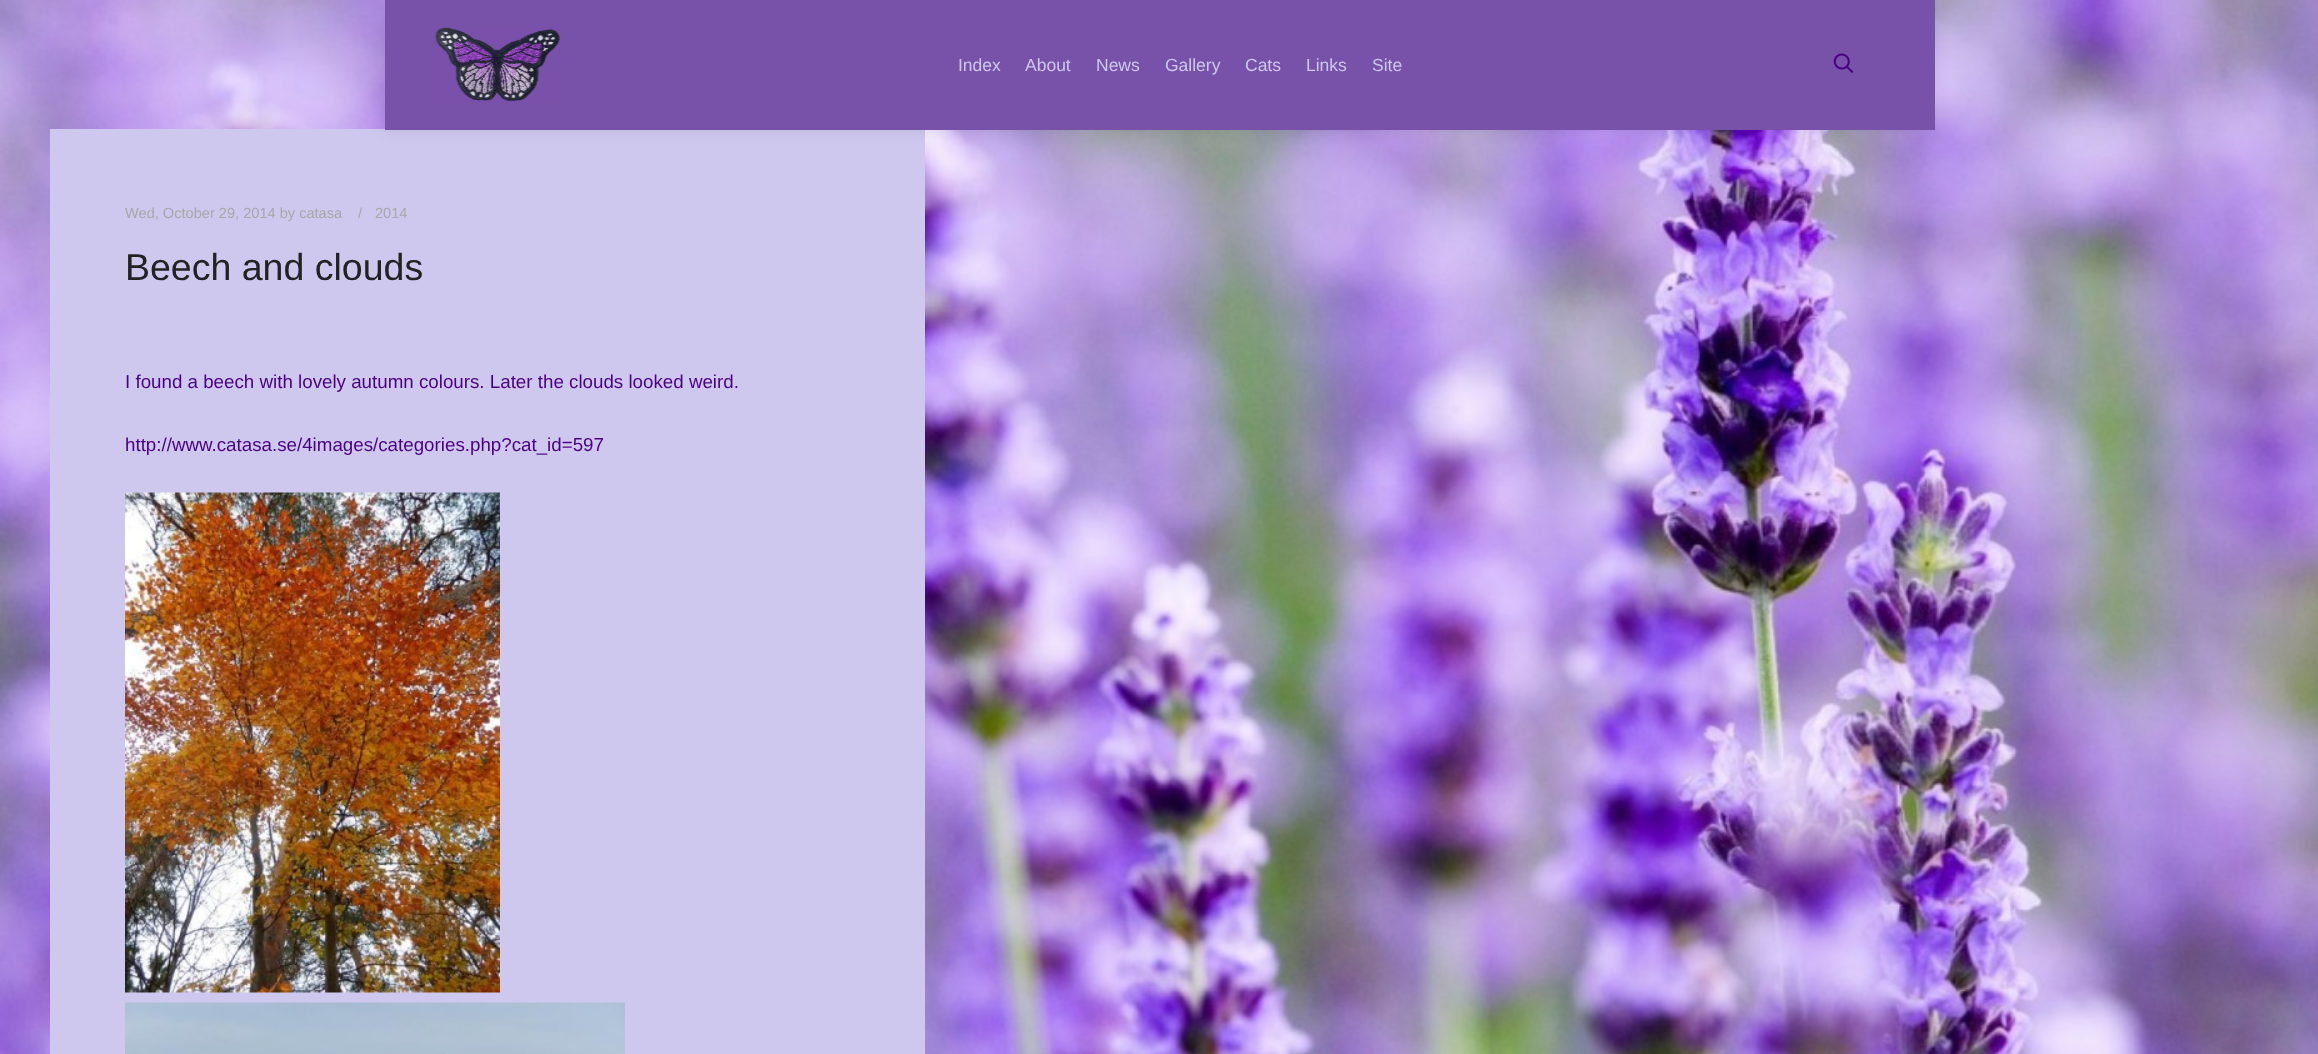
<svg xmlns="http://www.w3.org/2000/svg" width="2318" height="1054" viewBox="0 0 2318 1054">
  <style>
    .t1 { font: 17.5px Liberation Sans; fill: #cec8ef; }
    .t2 { font: 14.6px Liberation Sans; fill: #a7a7a7; }
    .t3 { font: 37.5px Liberation Sans; fill: #222; }
    .t4 { font: 18.75px Liberation Sans; fill: #4b0082; }
  </style>
  <rect width="100%" height="100%" fill="#fff"/>
  <image x="0" y="0" width="2318" height="1054" href="images/1.png"/>
  <rect x="50" y="129" width="875" height="925" fill="#cec8ef"/>
  <rect x="385" y="0" width="1550" height="130" fill="#00000017" filter="blur(7.5px)"/>
  <rect x="385" y="0" width="1550" height="130" fill="#7851a9"/>
  <image x="435" y="27" width="125" height="75" href="images/2.png"/>
  <text x="958" y="71" class="t1">Index</text>
  <text x="1025" y="71" class="t1">About</text>
  <text x="1096" y="71" class="t1">News</text>
  <text x="1165" y="71" class="t1">Gallery</text>
  <text x="1245" y="71" class="t1">Cats</text>
  <text x="1306" y="71" class="t1">Links</text>
  <text x="1372" y="71" class="t1">Site</text>
  <image x="1833" y="53" width="21" height="20" href="images/3.png"/>
  <text x="125" y="218" class="t2">Wed, October 29, 2014 by catasa</text>
  <text x="358" y="218" class="t2">/</text>
  <text x="375" y="218" class="t2">2014</text>
  <text x="125" y="280" class="t3">Beech and clouds</text>
  <text x="125" y="388" class="t4">I found a beech with lovely autumn colours. Later the clouds looked weird.</text>
  <text x="125" y="451" class="t4">http://www.catasa.se/4images/categories.php?cat_id=597</text>
  <image x="125" y="492" width="375" height="501" href="images/4.png"/>
  <image x="125" y="1002" width="500" height="52" href="images/5.png"/>
</svg>
